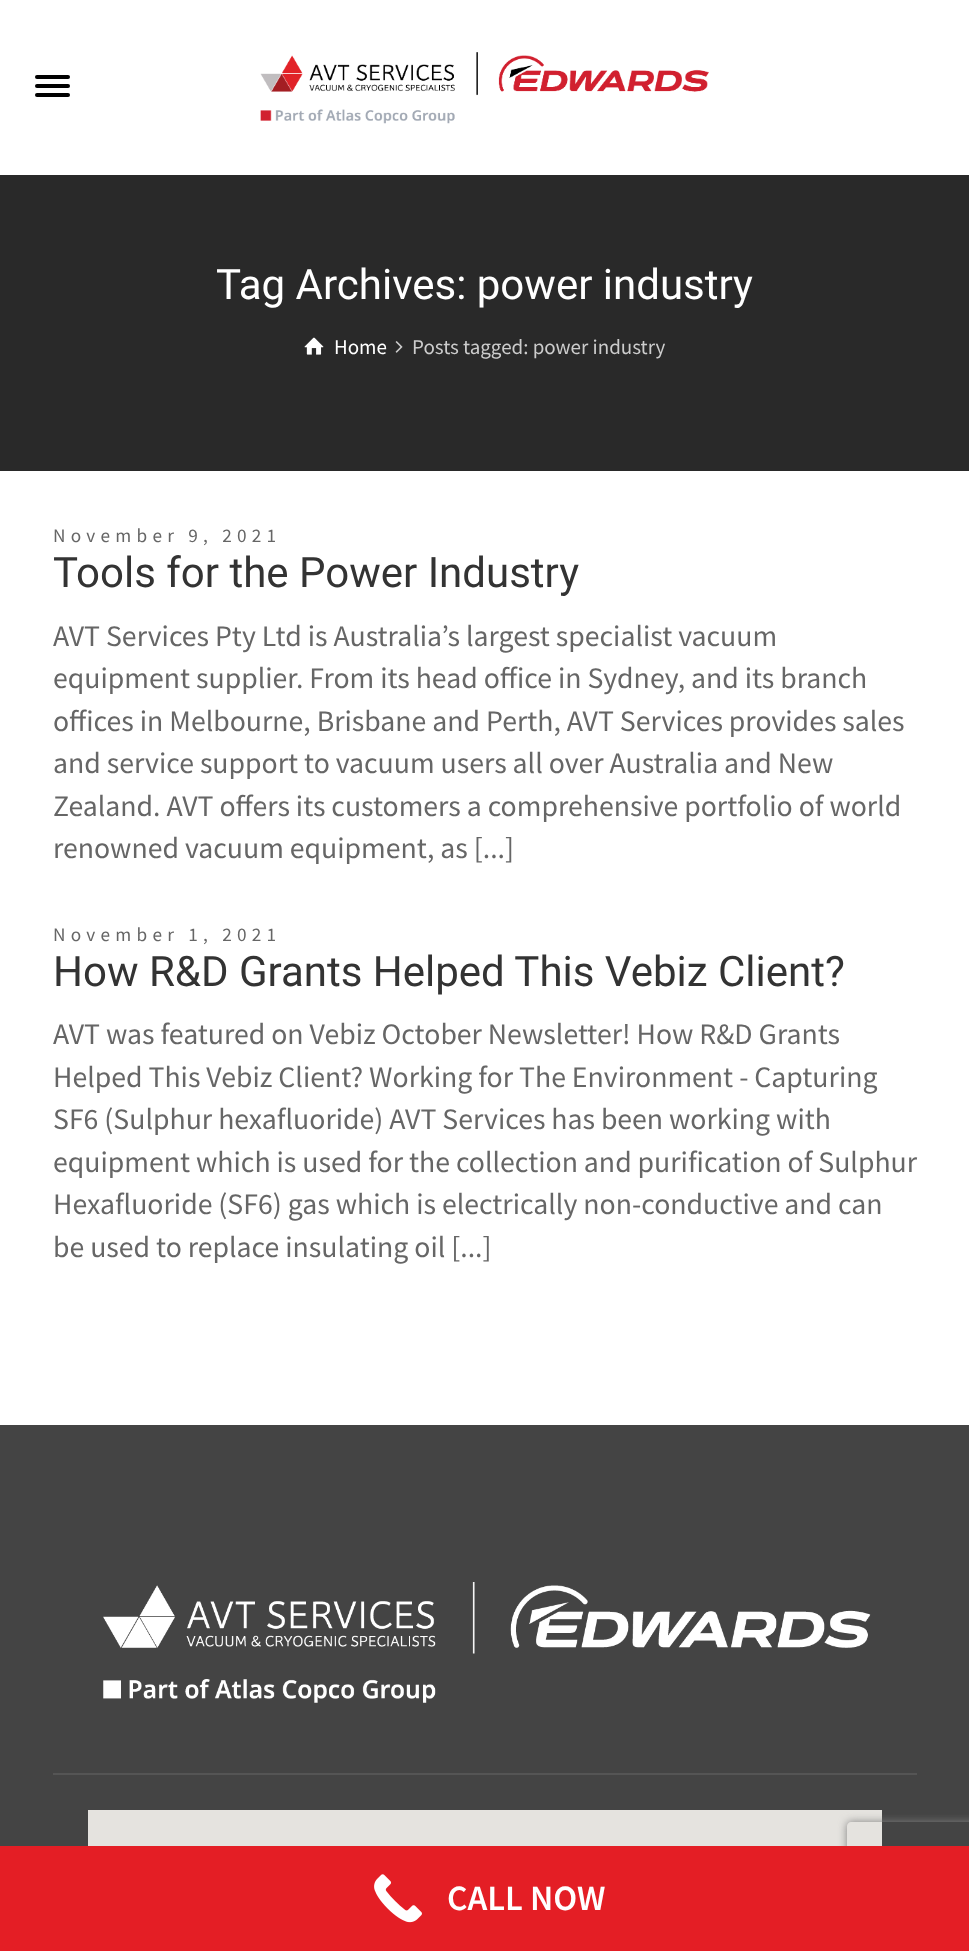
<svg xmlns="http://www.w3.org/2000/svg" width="969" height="1951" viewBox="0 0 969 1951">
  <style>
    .t1 { font: 42px Roboto; fill: #fff; }
    .t2 { font: 21px Source Sans Pro; fill: #fff; }
    .t3 { font: 21px Source Sans Pro; fill: #ccc; }
    .t4 { font: 19.25px Source Sans Pro; letter-spacing: 5.25px; fill: #666; }
    .t5 { font: 42px Roboto; fill: #333; }
    .t6 { font: 29.75px Source Sans Pro; fill: #666; }
    .t7 { font: 600 35.5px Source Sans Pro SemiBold; fill: #fff; }
  </style>
  <defs>
    <clipPath id="clip1"><path d="M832 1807H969V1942H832ZM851 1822H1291C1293 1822 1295 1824 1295 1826V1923C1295 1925 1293 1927 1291 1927H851C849 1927 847 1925 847 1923V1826C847 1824 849 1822 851 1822Z" clip-rule="evenodd"/></clipPath>
  </defs>
  <rect width="100%" height="100%" fill="#fff"/>
  <rect x="35" y="75" width="35" height="4" rx="2" fill="#000"/>
  <rect x="35" y="84" width="35" height="4" rx="2" fill="#000"/>
  <rect x="35" y="93" width="35" height="4" rx="2" fill="#000"/>
  <image x="260" y="52" width="449" height="72" href="images/1.png"/>
  <rect x="0" y="175" width="969" height="296" fill="#292929"/>
  <text x="216" y="299" class="t1">Tag Archives: power industry</text>
  <image x="304" y="337" width="20" height="18" href="images/2.png"/>
  <text x="334" y="354" class="t2">Home</text>
  <image x="395" y="341" width="8" height="12" href="images/3.png"/>
  <text x="412" y="354" class="t3">Posts tagged: power industry</text>
  <text x="53" y="542" class="t4">November 9, 2021</text>
  <text x="53" y="587" class="t5">Tools for the Power Industry</text>
  <text x="53" y="646" class="t6">AVT Services Pty Ltd is Australia’s largest specialist vacuum</text>
  <text x="53" y="688" class="t6">equipment supplier. From its head office in Sydney, and its branch</text>
  <text x="53" y="731" class="t6">offices in Melbourne, Brisbane and Perth, AVT Services provides sales</text>
  <text x="53" y="773" class="t6">and service support to vacuum users all over Australia and New</text>
  <text x="53" y="816" class="t6">Zealand. AVT offers its customers a comprehensive portfolio of world</text>
  <text x="53" y="858" class="t6">renowned vacuum equipment, as [...]</text>
  <text x="53" y="941" class="t4">November 1, 2021</text>
  <text x="53" y="986" class="t5">How R&amp;D Grants Helped This Vebiz Client?</text>
  <text x="53" y="1044" class="t6">AVT was featured on Vebiz October Newsletter! How R&amp;D Grants</text>
  <text x="53" y="1087" class="t6">Helped This Vebiz Client? Working for The Environment - Capturing</text>
  <text x="53" y="1129" class="t6">SF6 (Sulphur hexafluoride) AVT Services has been working with</text>
  <text x="53" y="1172" class="t6">equipment which is used for the collection and purification of Sulphur</text>
  <text x="53" y="1214" class="t6">Hexafluoride (SF6) gas which is electrically non-conductive and can</text>
  <text x="53" y="1257" class="t6">be used to replace insulating oil [...]</text>
  <rect x="0" y="1425" width="969" height="421" fill="#444"/>
  <image x="103" y="1582" width="768" height="121" href="images/4.png"/>
  <rect x="53" y="1773" width="864" height="2" fill="#555"/>
  <rect x="88" y="1810" width="794" height="36" fill="#e5e3df"/>
  <g clip-path="url(#clip1)">
    <rect x="847" y="1822" width="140" height="105" rx="4" fill="#808080" filter="blur(4.5px)"/>
  </g>
  <rect x="0" y="1846" width="969" height="105" fill="#e41e25"/>
  <image x="374" y="1874" width="48" height="49" href="images/5.png"/>
  <text x="447" y="1910" class="t7">CALL NOW</text>
</svg>
